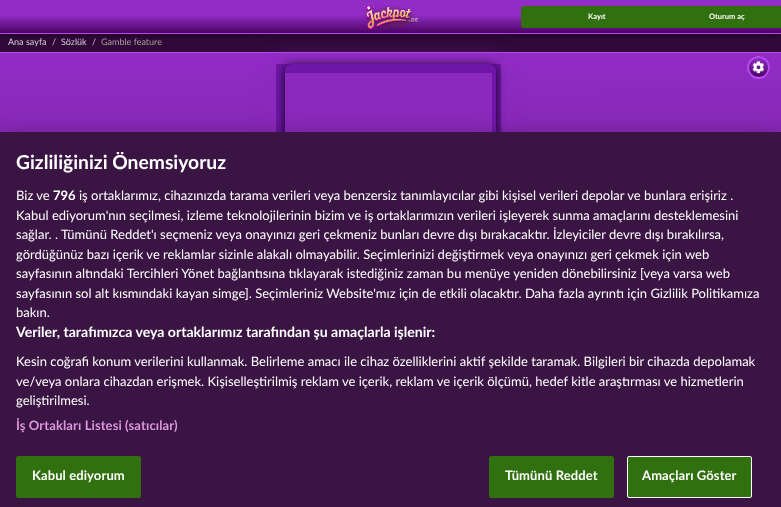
<svg xmlns="http://www.w3.org/2000/svg" width="781" height="507" viewBox="0 0 781 507">
  <style>
    .t1 { font: bold 7.5px Lato; fill: #fff; }
    .t2 { font: 9px Lato; fill: #d6ced7; }
    .t3 { font: 9px Lato; fill: #ccc; }
    .t4 { font: 9px Lato; fill: #ac9d9d; }
    .t5 { font: bold 19.25px Lato; fill: #fff; }
    .t6 { font: 13px Lato; fill: #fff; }
    .t7 { font: bold 13px Lato; fill: #fff; }
    .t8 { font: bold 14.1px Lato; fill: #fff; }
    .t9 { font: bold 13px Lato; letter-spacing: 0.1px; fill: #dd97dd; }
    .t10 { font: bold 13px Lato; letter-spacing: 0.1px; fill: #fff; }
  </style>
  <defs>
    <linearGradient id="g1" gradientUnits="userSpaceOnUse" x1="391" y1="0" x2="391" y2="33"><stop offset="0.45" stop-color="#912cc5"/><stop offset="1" stop-color="#4d0264"/></linearGradient>
    <linearGradient id="g2" gradientUnits="userSpaceOnUse" x1="390" y1="53" x2="391" y2="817"><stop offset="0" stop-color="#912cc5"/><stop offset="1" stop-color="#300939"/></linearGradient>
    <clipPath id="clip1"><path d="M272 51H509V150H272ZM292 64H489C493 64 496 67 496 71V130C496 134 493 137 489 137H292C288 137 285 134 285 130V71C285 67 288 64 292 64Z" clip-rule="evenodd"/></clipPath>
    <clipPath id="clip2"><path d="M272 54H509V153H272ZM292 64H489C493 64 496 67 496 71V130C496 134 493 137 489 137H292C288 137 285 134 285 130V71C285 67 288 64 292 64Z" clip-rule="evenodd"/></clipPath>
    <clipPath id="clip3"><rect x="16" y="152" width="749" height="294"/></clipPath>
  </defs>
  <rect width="100%" height="100%" fill="#300939"/>
  <rect x="0" y="2" width="781" height="34" fill="#0000004d" filter="blur(2.5px)"/>
  <rect x="0" y="0" width="781" height="33" fill="url(#g1)"/>
  <rect x="0" y="33" width="781" height="1" fill="#b849f1"/>
  <image x="363" y="3" width="55" height="28" href="images/1.png"/>
  <rect x="521" y="6" width="150" height="22" rx="3" fill="#30700f"/>
  <text x="588" y="19" class="t1">Kayıt</text>
  <rect x="651" y="6" width="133" height="22" rx="3" fill="#30700f"/>
  <text x="709" y="19" class="t1">Oturum aç</text>
  <rect x="0" y="53" width="781" height="79" fill="url(#g2)"/>
  <rect x="0" y="52" width="781" height="1" fill="#b849f1"/>
  <rect x="276" y="64" width="225" height="141" fill="#8a29bb" filter="blur(11px)"/>
  <rect x="280.5" y="68.5" width="216" height="132" fill="none" stroke="#6e16a7" stroke-width="9"/>
  <g clip-path="url(#clip1)">
    <rect x="285" y="64" width="211" height="73" rx="7" fill="#00000080" filter="blur(4px)"/>
  </g>
  <g clip-path="url(#clip2)">
    <rect x="285" y="67" width="211" height="73" rx="7" fill="#00000080" filter="blur(4px)"/>
  </g>
  <text x="8" y="45" class="t2">Ana sayfa</text>
  <text x="52" y="45" class="t3">/</text>
  <text x="61" y="45" class="t2">Sözlük</text>
  <text x="92" y="45" class="t3">/</text>
  <text x="101" y="45" class="t4">Gamble feature</text>
  <image x="747" y="56" width="23" height="23" href="images/2.png"/>
  <circle cx="758.5" cy="67.5" r="10.5" fill="none" stroke="#b849f1" stroke-width="2"/>
  <rect x="0" y="132" width="781" height="375" fill="#00000033" filter="blur(9px)"/>
  <rect x="0" y="132" width="781" height="375" fill="#3a1443"/>
  <g clip-path="url(#clip3)">
    <text x="16" y="169" class="t5">Gizliliğinizi Önemsiyoruz</text>
  </g>
  <text x="16" y="200" class="t6">Biz ve</text>
  <text x="53" y="200" class="t7">796</text>
  <text x="79" y="200" class="t6">iş ortaklarımız, cihazınızda tarama verileri veya benzersiz tanımlayıcılar gibi kişisel verileri depolar ve bunlara erişiriz .</text>
  <text x="16" y="220" class="t6">Kabul ediyorum'nın seçilmesi, izleme teknolojilerinin bizim ve iş ortaklarımızın verileri işleyerek sunma amaçlarını desteklemesini</text>
  <text x="16" y="239" class="t6">sağlar. . Tümünü Reddet'ı seçmeniz veya onayınızı geri çekmeniz bunları devre dışı bırakacaktır. İzleyiciler devre dışı bırakılırsa,</text>
  <text x="16" y="259" class="t6">gördüğünüz bazı içerik ve reklamlar sizinle alakalı olmayabilir. Seçimlerinizi değiştirmek veya onayınızı geri çekmek için web</text>
  <text x="16" y="278" class="t6">sayfasının altındaki Tercihleri Yönet bağlantısına tıklayarak istediğiniz zaman bu menüye yeniden dönebilirsiniz [veya varsa web</text>
  <text x="16" y="298" class="t6">sayfasının sol alt kısmındaki kayan simge]. Seçimleriniz Website'mız için de etkili olacaktır. Daha fazla ayrıntı için Gizlilik Politikamıza</text>
  <text x="16" y="317" class="t6">bakın.</text>
  <text x="16" y="337" class="t8">Veriler, tarafımızca veya ortaklarımız tarafından şu amaçlarla işlenir:</text>
  <text x="16" y="366" class="t6">Kesin coğrafi konum verilerini kullanmak. Belirleme amacı ile cihaz özelliklerini aktif şekilde taramak. Bilgileri bir cihazda depolamak</text>
  <text x="16" y="386" class="t6">ve/veya onlara cihazdan erişmek. Kişiselleştirilmiş reklam ve içerik, reklam ve içerik ölçümü, hedef kitle araştırması ve hizmetlerin</text>
  <text x="16" y="405" class="t6">geliştirilmesi.</text>
  <text x="16" y="430" class="t9">İş Ortakları Listesi (satıcılar)</text>
  <rect x="16.5" y="456.5" width="124" height="41" rx="1.5" fill="#30700f" stroke="#30700f"/>
  <text x="32" y="480" class="t10">Kabul ediyorum</text>
  <rect x="489.5" y="456.5" width="124" height="41" rx="1.5" fill="#30700f" stroke="#30700f"/>
  <text x="505" y="480" class="t10">Tümünü Reddet</text>
  <rect x="627.5" y="456.5" width="124" height="41" rx="1.5" fill="#30700f" stroke="#fff"/>
  <text x="642" y="480" class="t10">Amaçları Göster</text>
</svg>
